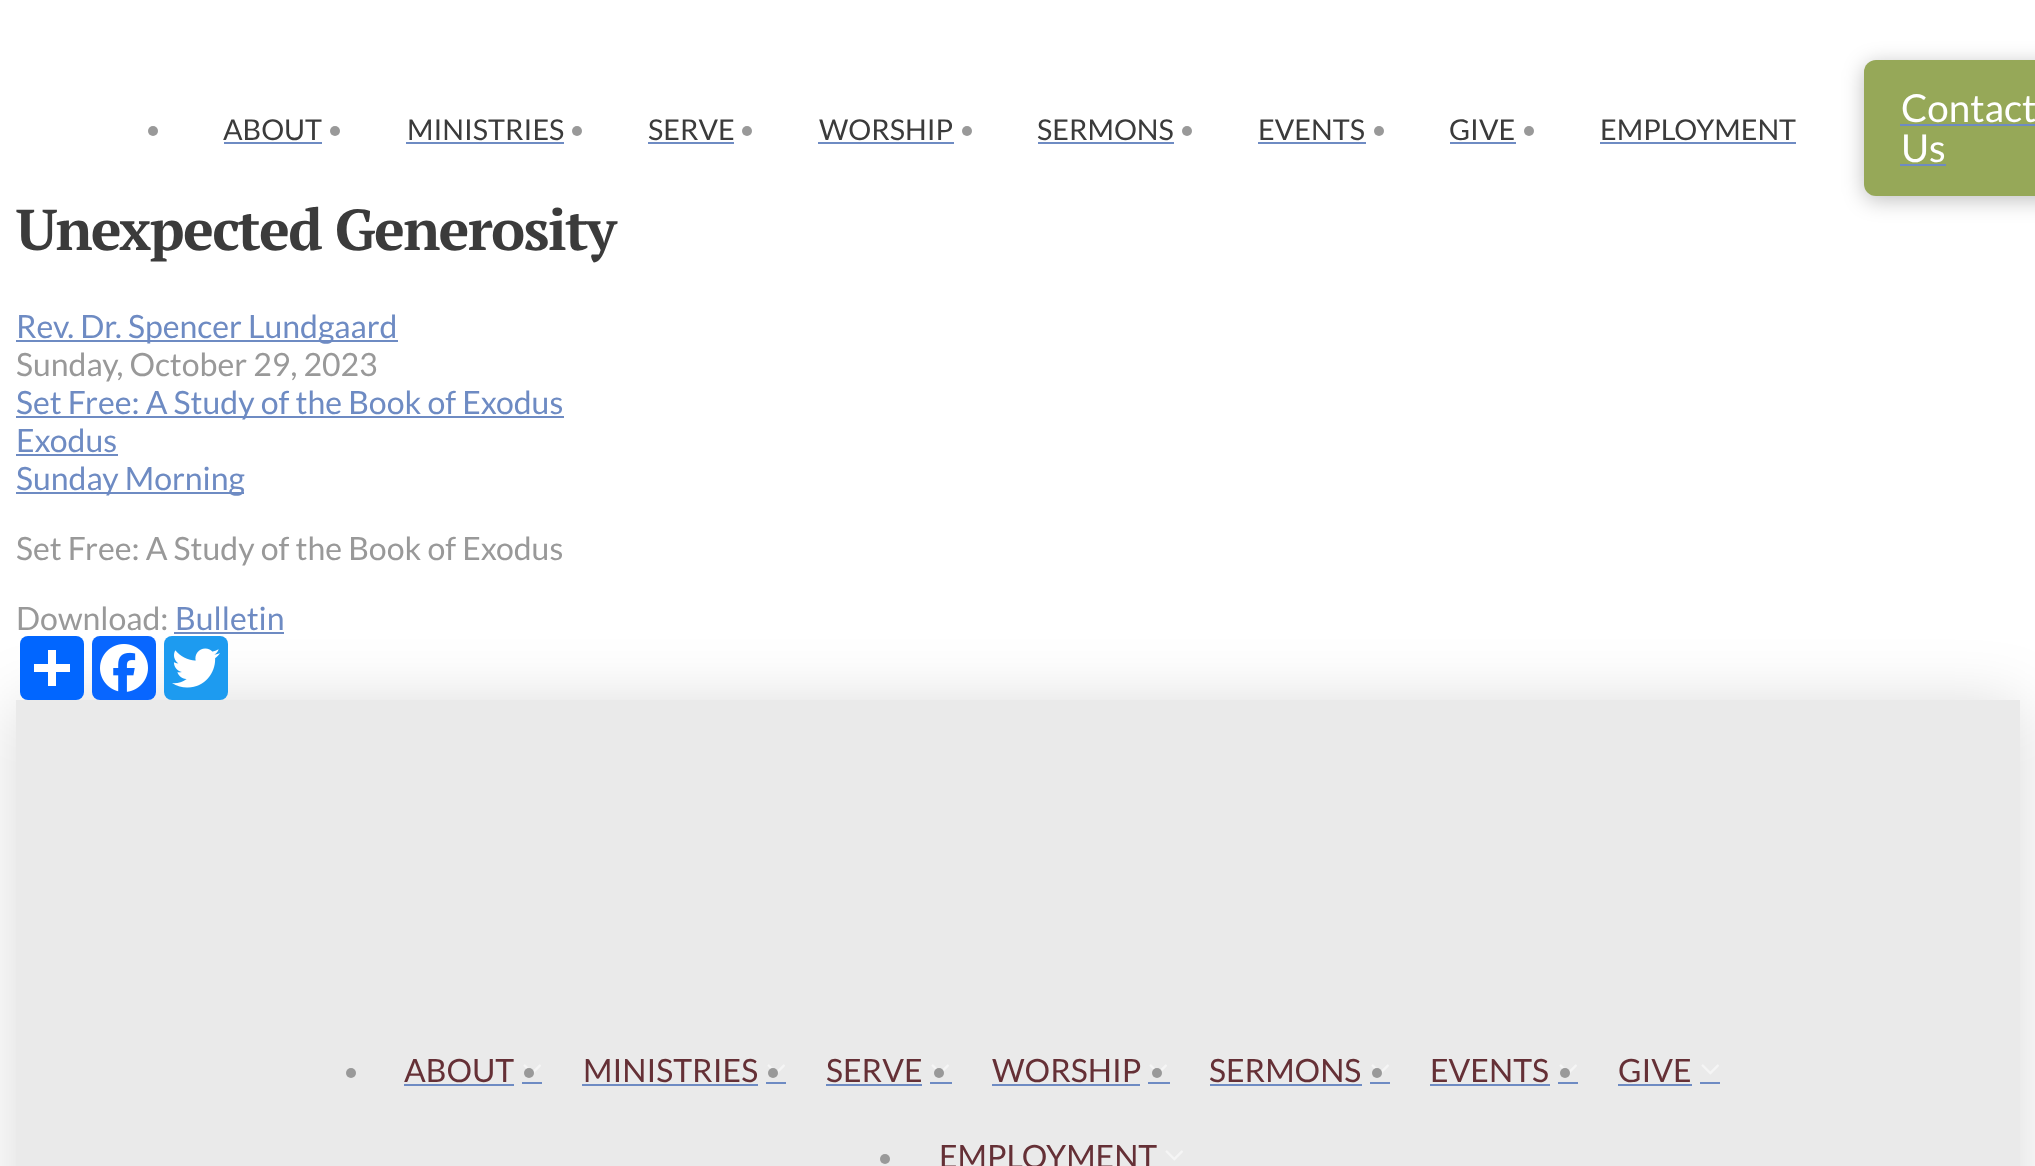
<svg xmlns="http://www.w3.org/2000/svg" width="2035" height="1166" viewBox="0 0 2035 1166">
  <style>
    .t1 { font: 28.75px Lato; fill: #3b3b3b; }
    .t2 { font: 38.5px Lato; fill: #fff; }
    .t3 { font: bold 57.6px PT Serif; letter-spacing: -1.7px; fill: #3b3b3b; }
    .t4 { font: 32px Lato; fill: #6e8bc3; }
    .t5 { font: 32px Lato; fill: #999; }
    .t6 { font: 32px Lato; fill: #653036; }
  </style>
  <rect width="100%" height="100%" fill="#fff"/>
  <circle cx="153" cy="131" r="5" fill="#999"/>
  <text x="223" y="140" class="t1">ABOUT</text>
  <rect x="224" y="142" width="98" height="2" fill="#6e8bc3"/>
  <circle cx="335" cy="131" r="5" fill="#999"/>
  <text x="407" y="140" class="t1">MINISTRIES</text>
  <rect x="406" y="142" width="158" height="2" fill="#6e8bc3"/>
  <circle cx="577" cy="131" r="5" fill="#999"/>
  <text x="648" y="140" class="t1">SERVE</text>
  <rect x="648" y="142" width="86" height="2" fill="#6e8bc3"/>
  <circle cx="747" cy="131" r="5" fill="#999"/>
  <text x="819" y="140" class="t1">WORSHIP</text>
  <rect x="818" y="142" width="136" height="2" fill="#6e8bc3"/>
  <circle cx="967" cy="131" r="5" fill="#999"/>
  <text x="1037" y="140" class="t1">SERMONS</text>
  <rect x="1038" y="142" width="136" height="2" fill="#6e8bc3"/>
  <circle cx="1187" cy="131" r="5" fill="#999"/>
  <text x="1258" y="140" class="t1">EVENTS</text>
  <rect x="1258" y="142" width="108" height="2" fill="#6e8bc3"/>
  <circle cx="1379" cy="131" r="5" fill="#999"/>
  <text x="1449" y="140" class="t1">GIVE</text>
  <rect x="1450" y="142" width="66" height="2" fill="#6e8bc3"/>
  <circle cx="1529" cy="131" r="5" fill="#999"/>
  <text x="1600" y="140" class="t1">EMPLOYMENT</text>
  <rect x="1600" y="142" width="196" height="2" fill="#6e8bc3"/>
  <rect x="1864" y="64" width="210" height="136" rx="12" fill="#00000040" filter="blur(10.5px)"/>
  <rect x="1864" y="60" width="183" height="136" rx="12" fill="#96a858"/>
  <text x="1901" y="122" class="t2">Contact</text>
  <rect x="1900" y="124" width="135" height="2" fill="#6e8bc3"/>
  <text x="1901" y="162" class="t2">Us</text>
  <rect x="1900" y="164" width="46" height="2" fill="#6e8bc3"/>
  <text x="16" y="250" class="t3">Unexpected Generosity</text>
  <rect x="16" y="340" width="382" height="2" fill="#6e8bc3"/>
  <text x="16" y="338" class="t4">Rev. Dr. Spencer Lundgaard</text>
  <text x="16" y="376" class="t5">Sunday, October 29, 2023</text>
  <rect x="16" y="416" width="548" height="2" fill="#6e8bc3"/>
  <text x="16" y="414" class="t4">Set Free: A Study of the Book of Exodus</text>
  <text x="16" y="452" class="t4">Exodus</text>
  <rect x="16" y="454" width="102" height="2" fill="#6e8bc3"/>
  <rect x="16" y="492" width="228" height="2" fill="#6e8bc3"/>
  <text x="16" y="490" class="t4">Sunday Morning</text>
  <text x="16" y="560" class="t5">Set Free: A Study of the Book of Exodus</text>
  <rect x="16" y="704" width="2004" height="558" fill="#00000026" filter="blur(32px)"/>
  <text x="16" y="630" class="t5">Download:</text>
  <text x="175" y="630" class="t4">Bulletin</text>
  <rect x="174" y="632" width="110" height="2" fill="#6e8bc3"/>
  <rect x="20" y="636" width="64" height="64" rx="8" fill="#0166ff"/>
  <rect x="48" y="650" width="8" height="36" fill="#fff"/>
  <rect x="34" y="664" width="36" height="8" fill="#fff"/>
  <rect x="92" y="636" width="64" height="64" rx="8" fill="#0866ff"/>
  <image x="100" y="644" width="48" height="48" href="images/1.png"/>
  <rect x="164" y="636" width="64" height="64" rx="8" fill="#1d9bf0"/>
  <image x="172" y="648" width="48" height="40" href="images/2.png"/>
  <rect x="16" y="700" width="2004" height="466" fill="#eaeaea"/>
  <circle cx="351" cy="1073" r="5" fill="#999"/>
  <text x="404" y="1082" class="t6">ABOUT</text>
  <rect x="404" y="1084" width="110" height="2" fill="#6e8bc3"/>
  <rect x="522" y="1082" width="20" height="2" fill="#6e8bc3"/>
  <image x="523" y="1064" width="18" height="10" href="images/3.png"/>
  <circle cx="529" cy="1073" r="5" fill="#999"/>
  <text x="583" y="1082" class="t6">MINISTRIES</text>
  <rect x="582" y="1084" width="176" height="2" fill="#6e8bc3"/>
  <rect x="766" y="1082" width="20" height="2" fill="#6e8bc3"/>
  <image x="767" y="1064" width="18" height="10" href="images/3.png"/>
  <circle cx="773" cy="1073" r="5" fill="#999"/>
  <text x="826" y="1082" class="t6">SERVE</text>
  <rect x="826" y="1084" width="96" height="2" fill="#6e8bc3"/>
  <rect x="930" y="1082" width="22" height="2" fill="#6e8bc3"/>
  <image x="931" y="1064" width="18" height="8" href="images/4.png"/>
  <circle cx="939" cy="1073" r="5" fill="#999"/>
  <text x="992" y="1082" class="t6">WORSHIP</text>
  <rect x="992" y="1084" width="148" height="2" fill="#6e8bc3"/>
  <rect x="1148" y="1082" width="22" height="2" fill="#6e8bc3"/>
  <image x="1149" y="1064" width="18" height="8" href="images/4.png"/>
  <circle cx="1157" cy="1073" r="5" fill="#999"/>
  <text x="1209" y="1082" class="t6">SERMONS</text>
  <rect x="1210" y="1084" width="152" height="2" fill="#6e8bc3"/>
  <rect x="1370" y="1082" width="20" height="2" fill="#6e8bc3"/>
  <image x="1371" y="1064" width="18" height="10" href="images/3.png"/>
  <circle cx="1377" cy="1073" r="5" fill="#999"/>
  <text x="1430" y="1082" class="t6">EVENTS</text>
  <rect x="1430" y="1084" width="120" height="2" fill="#6e8bc3"/>
  <rect x="1558" y="1082" width="20" height="2" fill="#6e8bc3"/>
  <image x="1559" y="1064" width="18" height="10" href="images/3.png"/>
  <circle cx="1565" cy="1073" r="5" fill="#999"/>
  <text x="1618" y="1082" class="t6">GIVE</text>
  <rect x="1618" y="1084" width="74" height="2" fill="#6e8bc3"/>
  <rect x="1700" y="1082" width="20" height="2" fill="#6e8bc3"/>
  <image x="1701" y="1064" width="18" height="11" href="images/5.png"/>
  <circle cx="885" cy="1159" r="5" fill="#999"/>
  <text x="939" y="1168" class="t6">EMPLOYMENT</text>
  <image x="1165" y="1150" width="18" height="11" href="images/5.png"/>
</svg>
